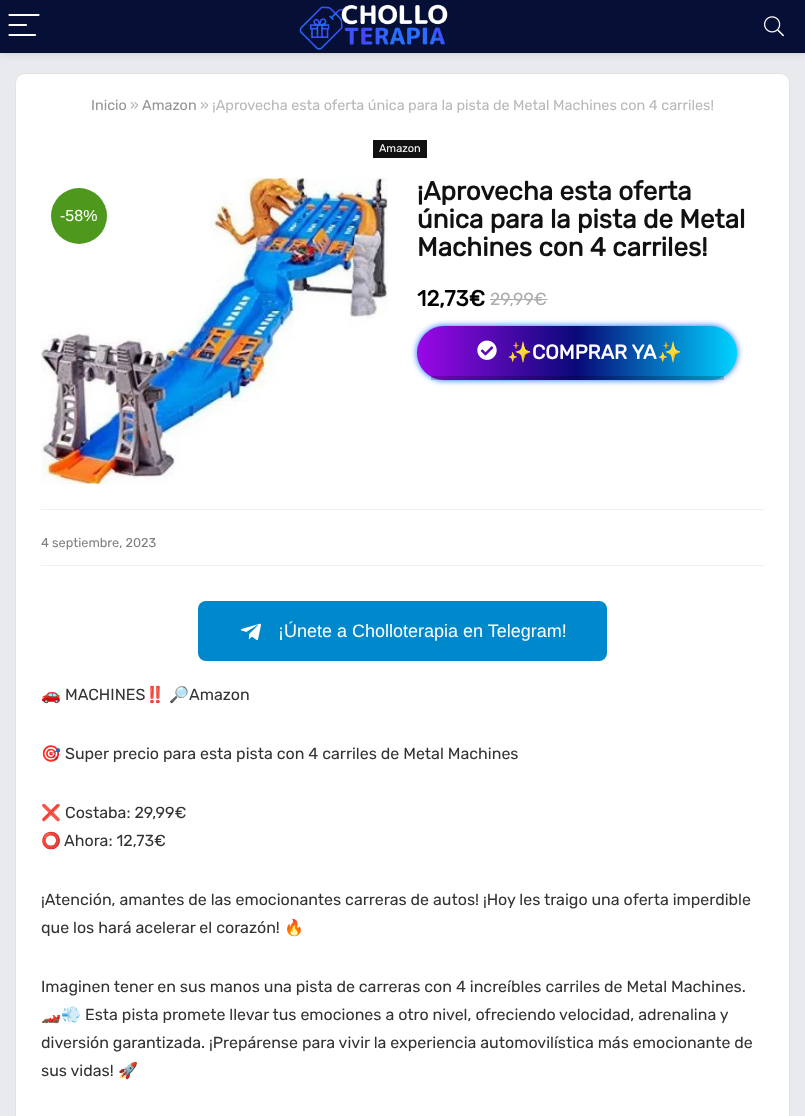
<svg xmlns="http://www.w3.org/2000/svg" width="805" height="1116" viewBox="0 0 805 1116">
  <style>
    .t1 { font: 300 14.4px Rubik; fill: #949494; }
    .t2 { font: 300 14.4px Rubik; fill: #b8b8b8; }
    .t3 { font: 300 11px Rubik; fill: #fff; }
    .t4 { font: 16px Liberation Sans; fill: #fff; }
    .t5 { font: bold 26px Rubik; fill: #111; }
    .t6 { font: bold 22px Rubik; fill: #000; }
    .t7 { font: 300 17.5px Rubik; fill: #adadad; }
    .t8 { font: bold 20px Noto Color Emoji; fill: #fff; }
    .t9 { font: bold 20px Rubik; fill: #fff; }
    .t10 { font: 300 12.75px Rubik; fill: #808080; }
    .t11 { font: 18px Liberation Sans; fill: #fff; }
    .t12 { font: 16px Noto Color Emoji; fill: #333; }
    .t13 { font: 300 16px Rubik; fill: #333; }
  </style>
  <defs>
    <linearGradient id="g1" gradientUnits="userSpaceOnUse" x1="417" y1="351" x2="737" y2="351"><stop offset="0" stop-color="#9a08e8"/><stop offset="0.5" stop-color="#090979"/><stop offset="1" stop-color="#00d4ff"/></linearGradient>
  </defs>
  <rect width="100%" height="100%" fill="#e9eaed"/>
  <rect x="-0.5" y="-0.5" width="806" height="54" fill="none" stroke="#e2e3e6"/>
  <rect x="0" y="1" width="805" height="53" fill="#0000001a" filter="blur(4px)"/>
  <rect x="0" y="0" width="805" height="53" fill="#061037"/>
  <path d="M9.5 15H38.5M9.5 25H26M9.5 35H35" fill="none" stroke="#fff" stroke-width="2.2" stroke-linecap="round"/>
  <image x="299" y="4" width="149" height="46" href="images/1.png"/>
  <image x="764" y="16" width="20" height="21" href="images/2.png"/>
  <rect x="15.5" y="73.5" width="774" height="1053" rx="9.5" fill="#fff" stroke="#e3e3e3"/>
  <text x="91" y="110" class="t1">Inicio</text>
  <text x="130" y="110" class="t2">»</text>
  <text x="142" y="110" class="t1">Amazon</text>
  <text x="200" y="110" class="t2">» ¡Aprovecha esta oferta única para la pista de Metal Machines con 4 carriles!</text>
  <rect x="373" y="140" width="54" height="18" fill="#111"/>
  <text x="379" y="152" class="t3">Amazon</text>
  <rect x="41" y="509" width="723" height="1" fill="#f0f0f0"/>
  <image x="41" y="178" width="347" height="306" href="images/3.png"/>
  <circle cx="79" cy="216" r="28" fill="#4d981d"/>
  <text x="60" y="221" class="t4">-58%</text>
  <text x="417" y="200" class="t5">¡Aprovecha esta oferta</text>
  <text x="417" y="228" class="t5">única para la pista de Metal</text>
  <text x="417" y="256" class="t5">Machines con 4 carriles!</text>
  <text x="417" y="306" class="t6">12,73€</text>
  <text x="490" y="305" class="t7">29,99€</text>
  <rect x="490" y="299" width="58" height="1" fill="#adadad"/>
  <rect x="417" y="326" width="320" height="54" rx="27" fill="#0067ff" filter="blur(3px)"/>
  <rect x="417" y="326" width="320" height="54" rx="27" fill="url(#g1)"/>
  <rect x="431" y="376" width="293" height="4" fill="#00000033"/>
  <image x="477" y="340" width="20" height="20" href="images/4.png"/>
  <text x="507" y="359" class="t8">✨</text>
  <text x="532" y="359" class="t9">COMPRAR YA</text>
  <text x="657" y="359" class="t8">✨</text>
  <rect x="41" y="565" width="723" height="1" fill="#f0f0f0"/>
  <text x="41" y="547" class="t10">4 septiembre, 2023</text>
  <rect x="198" y="601" width="409" height="60" rx="8" fill="#08c"/>
  <image x="240" y="623" width="21" height="18" href="images/5.png"/>
  <text x="278" y="637" class="t11">¡Únete a Cholloterapia en Telegram!</text>
  <text x="41" y="700" class="t12">🚗</text>
  <text x="65" y="700" class="t13">MACHINES</text>
  <text x="145" y="700" class="t12">‼️</text>
  <text x="169" y="700" class="t12">🔎</text>
  <text x="189" y="700" class="t13">Amazon</text>
  <text x="41" y="759" class="t12">🎯</text>
  <text x="65" y="759" class="t13">Super precio para esta pista con 4 carriles de Metal Machines</text>
  <text x="41" y="818" class="t12">❌</text>
  <text x="65" y="818" class="t13">Costaba: 29,99€</text>
  <text x="41" y="846" class="t12">⭕️</text>
  <text x="64" y="846" class="t13">Ahora: 12,73€</text>
  <text x="41" y="905" class="t13">¡Atención, amantes de las emocionantes carreras de autos! ¡Hoy les traigo una oferta imperdible</text>
  <text x="41" y="933" class="t13">que los hará acelerar el corazón!</text>
  <text x="284" y="933" class="t12">🔥</text>
  <text x="41" y="992" class="t13">Imaginen tener en sus manos una pista de carreras con 4 increíbles carriles de Metal Machines.</text>
  <text x="41" y="1020" class="t12">🏎️💨</text>
  <text x="85" y="1020" class="t13">Esta pista promete llevar tus emociones a otro nivel, ofreciendo velocidad, adrenalina y</text>
  <text x="41" y="1048" class="t13">diversión garantizada. ¡Prepárense para vivir la experiencia automovilística más emocionante de</text>
  <text x="41" y="1076" class="t13">sus vidas!</text>
  <text x="118" y="1076" class="t12">🚀</text>
</svg>
